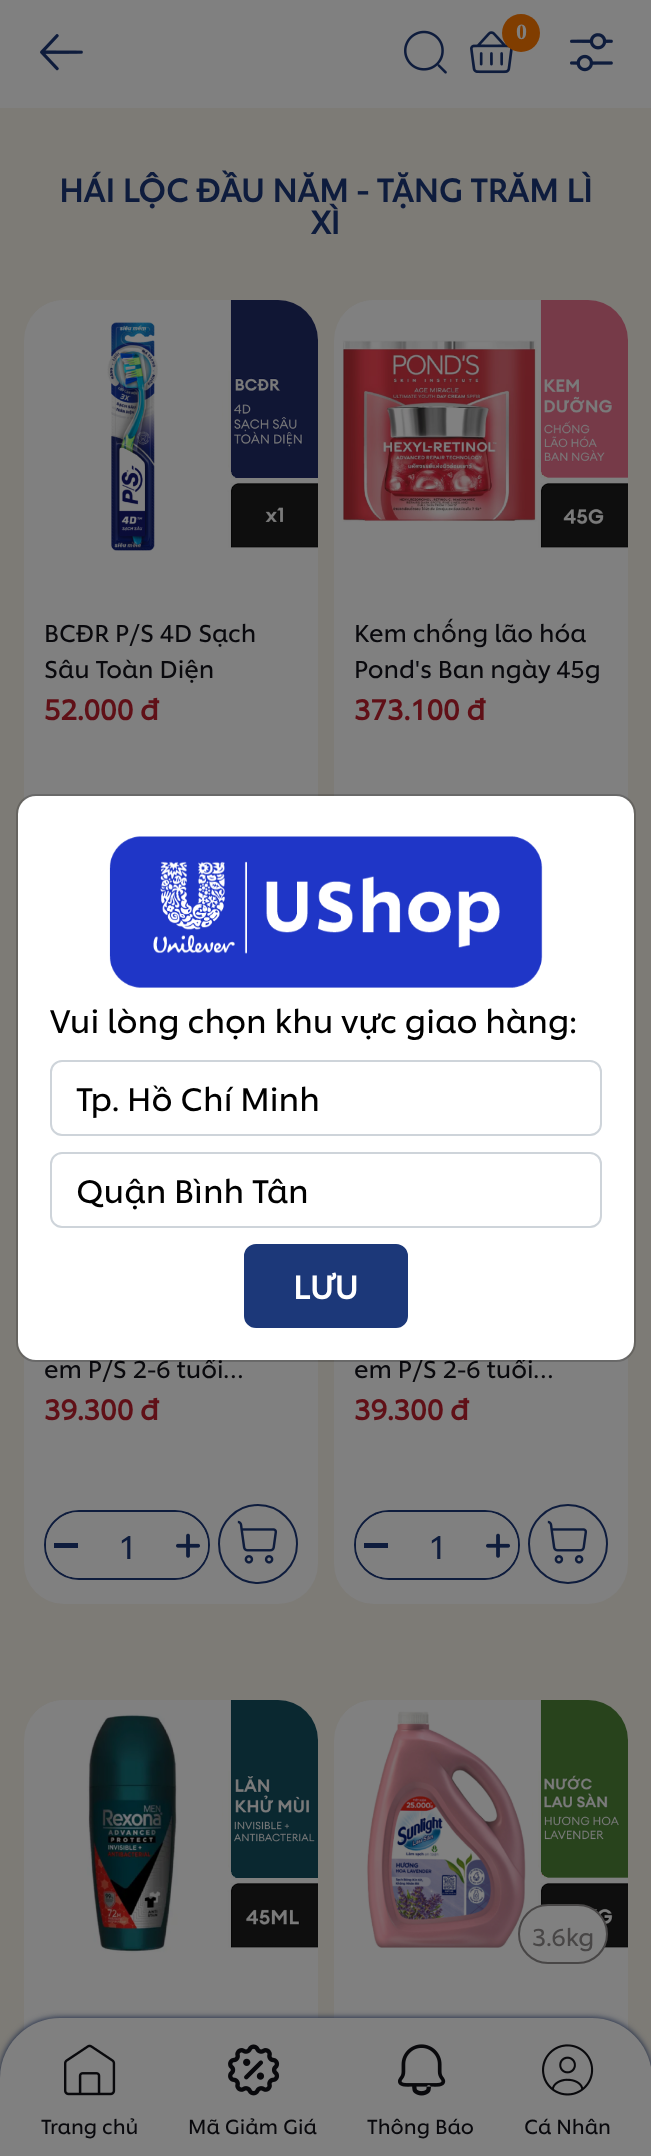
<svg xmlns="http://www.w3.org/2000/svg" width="651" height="2156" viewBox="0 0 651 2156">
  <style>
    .t1 { font: bold 22px Liberation Serif; fill: #808080; }
    .t2 { font: bold 32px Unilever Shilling; fill: #0e1c3d; }
    .t3 { font: 24px Unilever Shilling; fill: #09090d; }
    .t4 { font: bold 28px Unilever Shilling; fill: #601017; }
    .t5 { font: 32px Unilever Shilling; fill: #0e1c3d; }
    .t6 { font: 24px Unilever Shilling; fill: #484646; }
    .t7 { font: 32px Unilever Shilling; fill: #000; }
    .t8 { font: bold 32px Unilever Shilling; fill: #fff; }
    .t9 { font: 20px Unilever Shilling; fill: #09090d; }
  </style>
  <rect width="100%" height="100%" fill="#7d7b76"/>
  <rect x="0" y="0" width="651" height="108" fill="#808080"/>
  <image x="404" y="30" width="43" height="44" href="images/1.png"/>
  <image x="470" y="31" width="43" height="43" href="images/2.png"/>
  <circle cx="521" cy="33" r="19" fill="#803d00"/>
  <text x="516" y="39" class="t1">0</text>
  <image x="570" y="33" width="43" height="39" href="images/3.png"/>
  <image x="40" y="34" width="43" height="37" href="images/4.png"/>
  <text x="59" y="202" class="t2">HÁI LỘC ĐẦU NĂM - TẶNG TRĂM LÌ</text>
  <text x="311" y="234" class="t2">XÌ</text>
  <rect x="24" y="300" width="294" height="604" rx="40" fill="#808080"/>
  <image x="30" y="300" width="288" height="251" href="images/5.png"/>
  <text x="44" y="642" class="t3">BCĐR P/S 4D Sạch</text>
  <text x="44" y="678" class="t3">Sâu Toàn Diện</text>
  <text x="44" y="720" class="t4">52.000 đ</text>
  <rect x="334" y="300" width="294" height="604" rx="40" fill="#808080"/>
  <image x="340" y="300" width="288" height="248" href="images/6.png"/>
  <text x="354" y="642" class="t3">Kem chống lão hóa</text>
  <text x="354" y="678" class="t3">Pond's Ban ngày 45g</text>
  <text x="354" y="720" class="t4">373.100 đ</text>
  <rect x="24" y="1000" width="294" height="604" rx="40" fill="#808080"/>
  <text x="44" y="1378" class="t3">em P/S 2-6 tuổi…</text>
  <text x="44" y="1420" class="t4">39.300 đ</text>
  <rect x="45" y="1511" width="164" height="68" rx="34" fill="none" stroke="#0e1c3d" stroke-width="2"/>
  <path d="M79 1512H88V1578H79C61 1578 46 1563 46 1545C46 1527 61 1512 79 1512Z" fill="#808080"/>
  <rect x="54" y="1543" width="24" height="5" fill="#0e1c3d"/>
  <text x="118" y="1559" class="t5">1</text>
  <path d="M168 1512H175C193 1512 208 1527 208 1545C208 1563 193 1578 175 1578H168Z" fill="#808080"/>
  <image x="176" y="1533" width="24" height="25" href="images/7.png"/>
  <circle cx="258" cy="1544" r="39" fill="none" stroke="#0e1c3d" stroke-width="2"/>
  <image x="237" y="1520" width="40" height="44" href="images/8.png"/>
  <rect x="334" y="1000" width="294" height="604" rx="40" fill="#808080"/>
  <text x="354" y="1378" class="t3">em P/S 2-6 tuổi…</text>
  <text x="354" y="1420" class="t4">39.300 đ</text>
  <rect x="355" y="1511" width="164" height="68" rx="34" fill="none" stroke="#0e1c3d" stroke-width="2"/>
  <path d="M389 1512H398V1578H389C371 1578 356 1563 356 1545C356 1527 371 1512 389 1512Z" fill="#808080"/>
  <rect x="364" y="1543" width="24" height="5" fill="#0e1c3d"/>
  <text x="428" y="1559" class="t5">1</text>
  <path d="M478 1512H485C503 1512 518 1527 518 1545C518 1563 503 1578 485 1578H478Z" fill="#808080"/>
  <image x="486" y="1533" width="24" height="25" href="images/7.png"/>
  <circle cx="568" cy="1544" r="39" fill="none" stroke="#0e1c3d" stroke-width="2"/>
  <image x="547" y="1520" width="40" height="44" href="images/8.png"/>
  <rect x="24" y="1700" width="294" height="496" rx="40" fill="#808080"/>
  <image x="30" y="1700" width="288" height="253" href="images/9.png"/>
  <rect x="334" y="1700" width="294" height="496" rx="40" fill="#808080"/>
  <image x="340" y="1700" width="288" height="248" href="images/10.png"/>
  <rect x="519" y="1905" width="88" height="58" rx="29" fill="#808080" stroke="#484646" stroke-width="2"/>
  <text x="532" y="1946" class="t6">3.6kg</text>
  <rect x="18" y="796" width="616" height="564" rx="18" fill="#fff"/>
  <rect x="17" y="795" width="618" height="566" rx="19" fill="none" stroke="#0000002e" stroke-width="2"/>
  <image x="109" y="836" width="434" height="152" href="images/11.png"/>
  <text x="50" y="1033" class="t7">Vui lòng chọn khu vực giao hàng:</text>
  <rect x="51" y="1061" width="550" height="74" rx="11" fill="none" stroke="#ced4da" stroke-width="2"/>
  <text x="76" y="1111" class="t7">Tp. Hồ Chí Minh</text>
  <rect x="51" y="1153" width="550" height="74" rx="11" fill="none" stroke="#ced4da" stroke-width="2"/>
  <text x="76" y="1203" class="t7">Quận Bình Tân</text>
  <rect x="245" y="1245" width="162" height="82" rx="11" fill="#1c3879" stroke="#1c3879" stroke-width="2"/>
  <text x="293" y="1299" class="t8">LƯU</text>
  <rect x="0" y="2018" width="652" height="138" rx="60" fill="#0e1c3d" filter="blur(3px)"/>
  <path d="M60 2018H592C625 2018 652 2045 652 2078V2156H0V2078C0 2045 27 2018 60 2018Z" fill="#808080"/>
  <image x="64" y="2044" width="52" height="52" href="images/12.png"/>
  <text x="41" y="2134" class="t9">Trang chủ</text>
  <image x="228" y="2044" width="52" height="52" href="images/13.png"/>
  <text x="188" y="2134" class="t9">Mã Giảm Giá</text>
  <image x="398" y="2044" width="48" height="52" href="images/14.png"/>
  <text x="367" y="2134" class="t9">Thông Báo</text>
  <image x="542" y="2044" width="52" height="52" href="images/15.png"/>
  <text x="524" y="2134" class="t9">Cá Nhân</text>
</svg>
